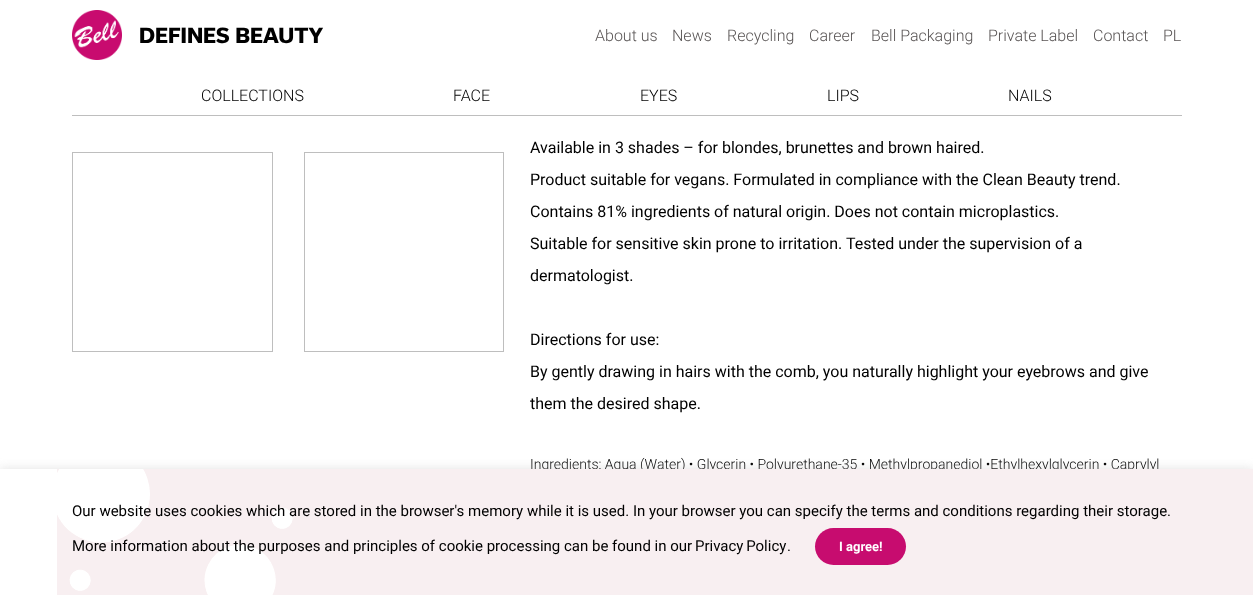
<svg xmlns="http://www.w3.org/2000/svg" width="1253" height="595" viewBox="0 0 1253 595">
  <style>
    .t1 { font: 800 20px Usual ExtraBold; fill: #000; }
    .t2 { font: 300 16px Roboto; fill: #585454; }
    .t3 { font: 300 16px Roboto; fill: #000; }
    .t4 { font: 16px Roboto; fill: #000; }
    .t5 { font: 300 14px Roboto; fill: #000; }
    .t6 { font: 15px Roboto; fill: #000; }
    .t7 { font: bold 13px Roboto; fill: #fff; }
  </style>
  <rect width="100%" height="100%" fill="#fff"/>
  <image x="72" y="10" width="50" height="50" href="images/1.png"/>
  <text x="139" y="43" class="t1">DEFINES BEAUTY</text>
  <text x="595" y="41" class="t2">About us</text>
  <text x="672" y="41" class="t2">News</text>
  <text x="727" y="41" class="t2">Recycling</text>
  <text x="809" y="41" class="t2">Career</text>
  <text x="871" y="41" class="t2">Bell Packaging</text>
  <text x="988" y="41" class="t2">Private Label</text>
  <text x="1093" y="41" class="t2">Contact</text>
  <text x="1163" y="41" class="t2">PL</text>
  <rect x="72" y="115" width="1110" height="1" fill="#bebebe"/>
  <text x="201" y="101" class="t3">COLLECTIONS</text>
  <text x="453" y="101" class="t3">FACE</text>
  <text x="640" y="101" class="t3">EYES</text>
  <text x="827" y="101" class="t3">LIPS</text>
  <text x="1008" y="101" class="t3">NAILS</text>
  <rect x="72.5" y="152.5" width="200" height="199" fill="none" stroke="#bebebe"/>
  <rect x="304.5" y="152.5" width="199" height="199" fill="none" stroke="#bebebe"/>
  <text x="530" y="153" class="t4">Available in 3 shades – for blondes, brunettes and brown haired.</text>
  <text x="530" y="185" class="t4">Product suitable for vegans. Formulated in compliance with the Clean Beauty trend.</text>
  <text x="530" y="217" class="t4">Contains 81% ingredients of natural origin. Does not contain microplastics.</text>
  <text x="530" y="249" class="t4">Suitable for sensitive skin prone to irritation. Tested under the supervision of a</text>
  <text x="530" y="281" class="t4">dermatologist.</text>
  <text x="530" y="345" class="t4">Directions for use:</text>
  <text x="530" y="377" class="t4">By gently drawing in hairs with the comb, you naturally highlight your eyebrows and give</text>
  <text x="530" y="409" class="t4">them the desired shape.</text>
  <text x="530" y="469" class="t5">Ingredients: Aqua (Water) • Glycerin • Polyurethane-35 • Methylpropanediol •Ethylhexylglycerin • Caprylyl</text>
  <rect x="0" y="468" width="1253" height="126" fill="#acabab4d" filter="blur(5px)"/>
  <rect x="0" y="469" width="57" height="126" fill="#fff"/>
  <image x="57" y="469" width="1196" height="126" href="images/2.png"/>
  <text x="72" y="516" class="t6">Our website uses cookies which are stored in the browser's memory while it is used. In your browser you can specify the terms and conditions regarding their storage.</text>
  <text x="72" y="551" class="t6">More information about the purposes and principles of cookie processing can be found in our</text>
  <text x="695" y="551" word-spacing="-1" class="t6">Privacy Policy</text>
  <text x="787" y="551" class="t6">.</text>
  <rect x="815" y="528" width="91" height="37" rx="18.5" fill="#c70c6f"/>
  <text x="839" y="551" class="t7">I agree!</text>
</svg>
